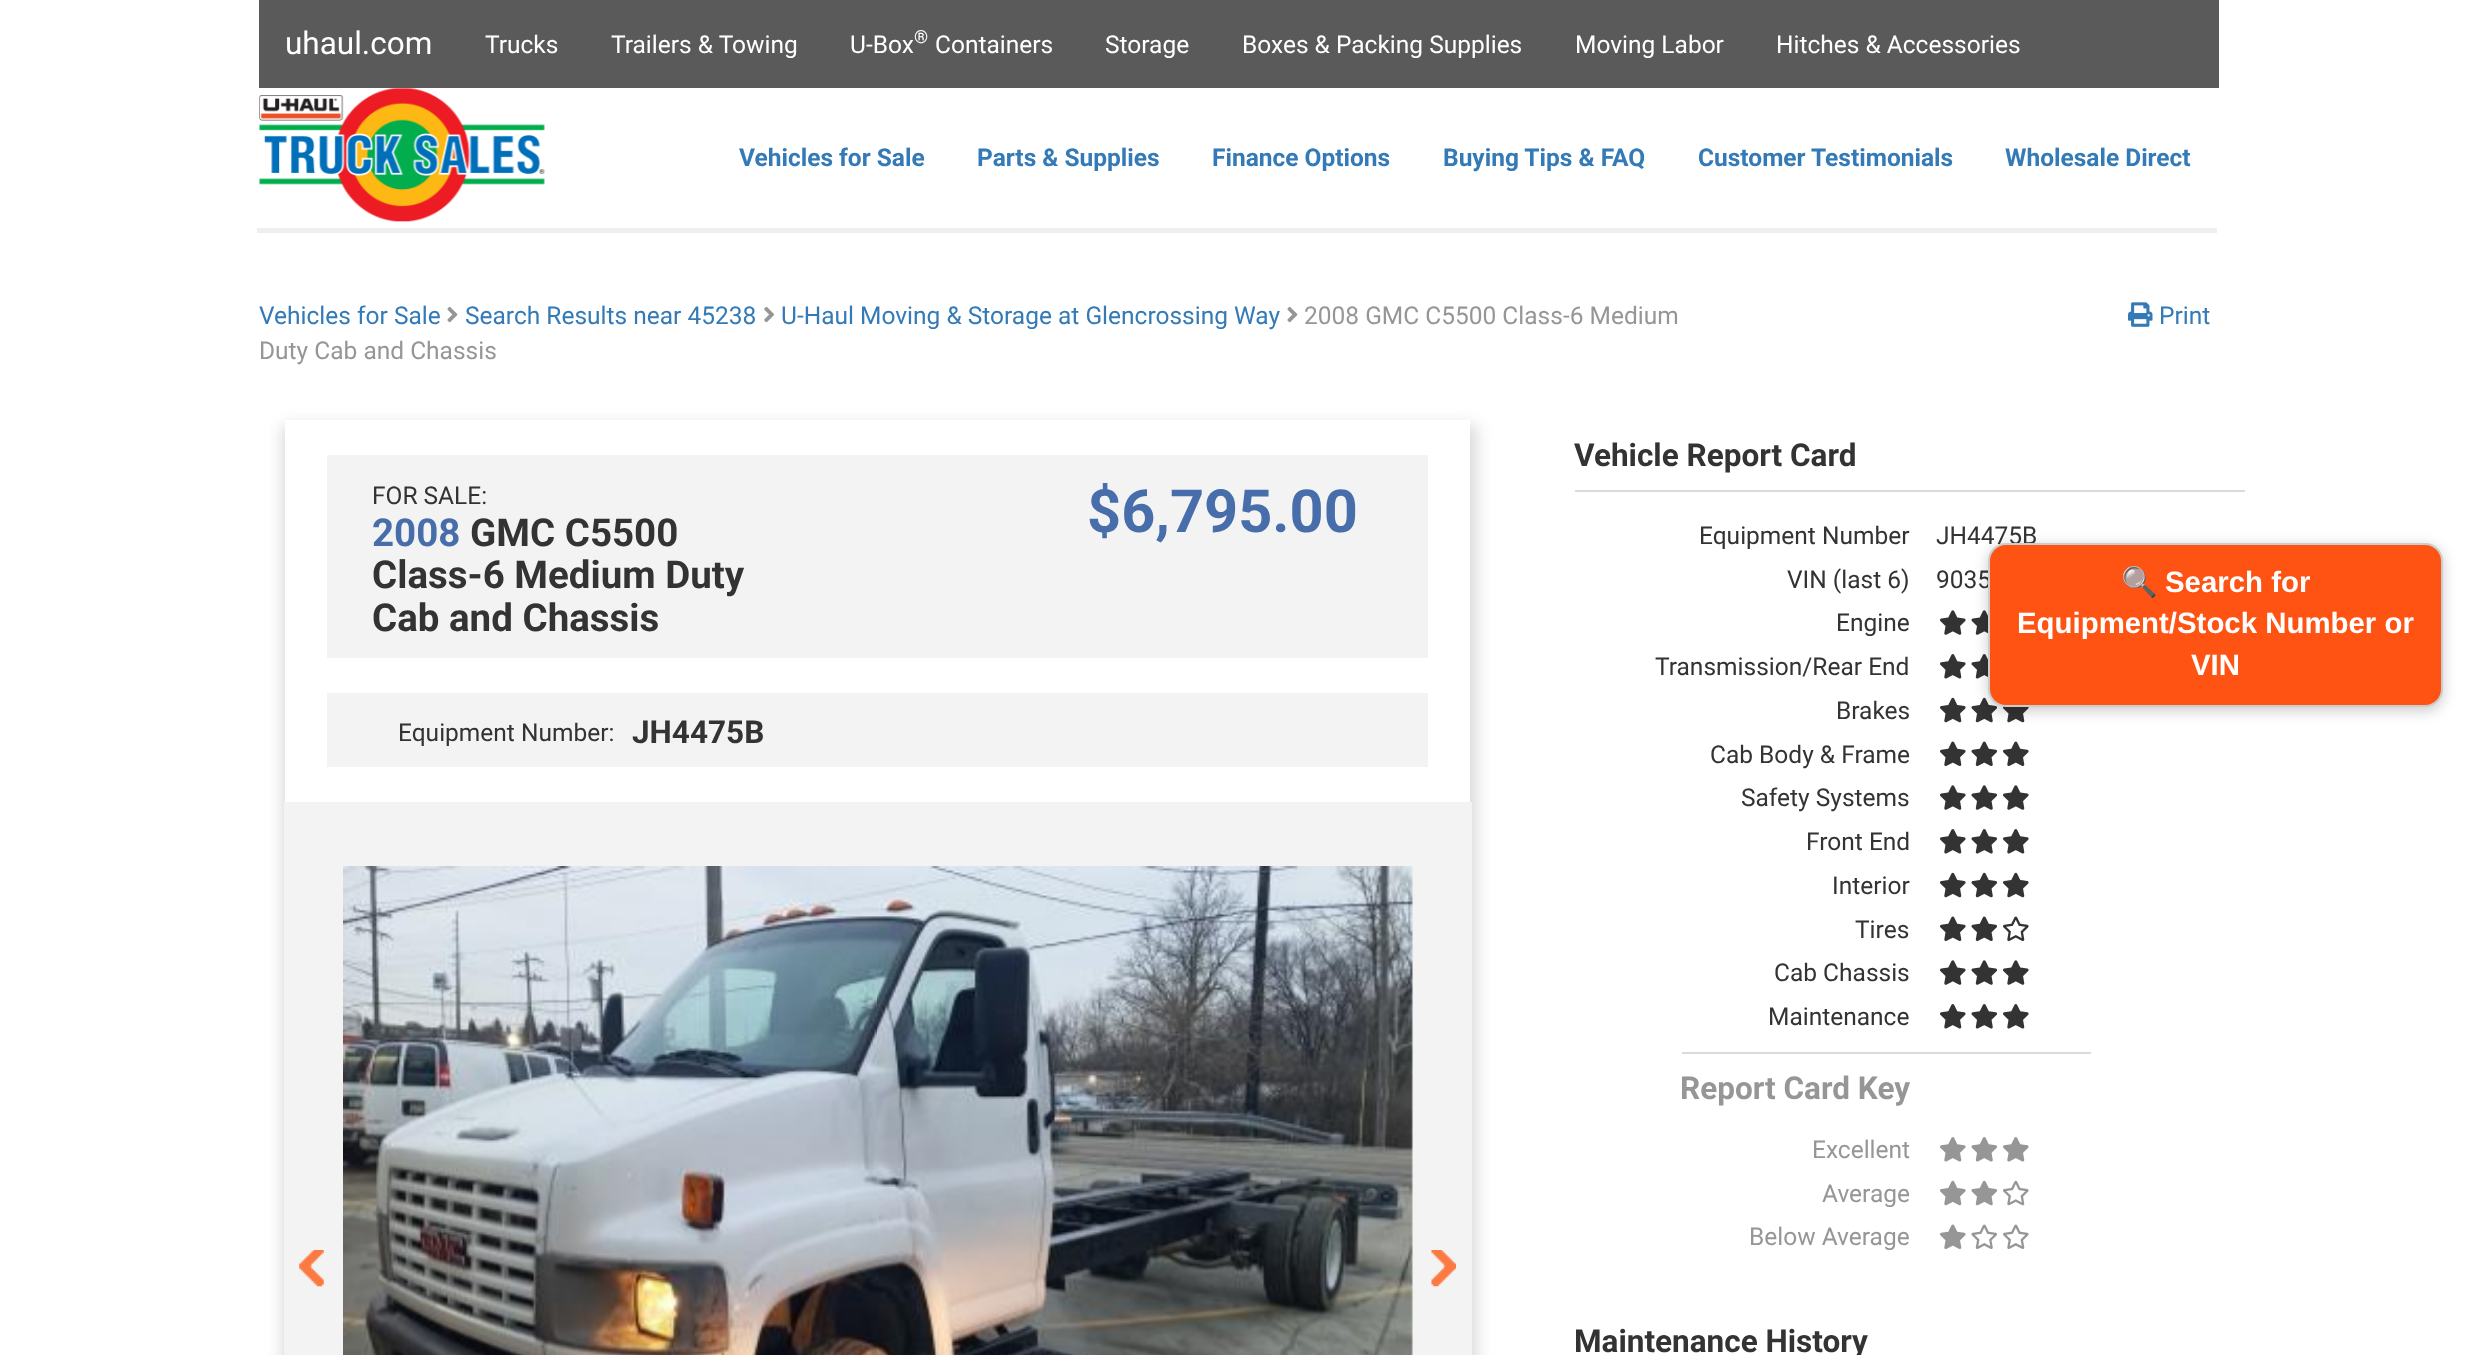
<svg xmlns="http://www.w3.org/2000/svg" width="2478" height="1355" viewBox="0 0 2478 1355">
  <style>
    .t1 { font: 31.5px Roboto; fill: #fff; }
    .t2 { font: 24.5px Roboto; fill: #fff; }
    .t3 { font: 18px Roboto; fill: #fff; }
    .t4 { font: bold 24.5px Roboto; fill: #337ab7; }
    .t5 { font: 24.5px Roboto; fill: #337ab7; }
    .t6 { font: 24.5px Roboto; fill: #969696; }
    .t7 { font: 24.5px Roboto; fill: #333; }
    .t8 { font: bold 38.5px Roboto; fill: #476eaa; }
    .t9 { font: bold 38.5px Roboto; fill: #333; }
    .t10 { font: bold 59.5px Roboto; fill: #476eaa; }
    .t11 { font: bold 31.5px Roboto; fill: #333; }
    .t12 { font: bold 31.5px Roboto; fill: #969696; }
    .t13 { font: bold 29.4px Noto Color Emoji; fill: #fff; }
    .t14 { font: bold 29.4px Liberation Sans; fill: #fff; }
  </style>
  <defs>
    <clipPath id="clip1"><path d="M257 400H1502V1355H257ZM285 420H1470V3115H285Z" clip-rule="evenodd"/></clipPath>
  </defs>
  <rect width="100%" height="100%" fill="#fff"/>
  <rect x="259" y="0" width="1960" height="88" fill="#5a5a5a"/>
  <text x="285" y="54" class="t1">uhaul.com</text>
  <text x="485" y="53" class="t2">Trucks</text>
  <text x="611" y="53" class="t2">Trailers &amp; Towing</text>
  <text x="850" y="53" class="t2">U-Box</text>
  <text x="914" y="43" class="t3">®</text>
  <text x="935" y="53" class="t2">Containers</text>
  <text x="1105" y="53" class="t2">Storage</text>
  <text x="1242" y="53" class="t2">Boxes &amp; Packing Supplies</text>
  <text x="1575" y="53" class="t2">Moving Labor</text>
  <text x="1776" y="53" class="t2">Hitches &amp; Accessories</text>
  <image x="259" y="87" width="286" height="135" href="images/1.png"/>
  <text x="739" y="166" class="t4">Vehicles for Sale</text>
  <text x="977" y="166" class="t4">Parts &amp; Supplies</text>
  <text x="1212" y="166" class="t4">Finance Options</text>
  <text x="1443" y="166" class="t4">Buying Tips &amp; FAQ</text>
  <text x="1698" y="166" class="t4">Customer Testimonials</text>
  <text x="2005" y="166" class="t4">Wholesale Direct</text>
  <rect x="257" y="228" width="1960" height="5" fill="#eee"/>
  <text x="259" y="324" class="t5">Vehicles for Sale</text>
  <image x="1287" y="306" width="11" height="17" href="images/2.png"/>
  <text x="1304" y="324" class="t6">2008 GMC C5500 Class-6 Medium</text>
  <text x="259" y="359" class="t6">Duty Cab and Chassis</text>
  <image x="447" y="306" width="11" height="17" href="images/2.png"/>
  <text x="465" y="324" class="t5">Search Results near 45238</text>
  <image x="764" y="306" width="10" height="17" href="images/3.png"/>
  <text x="781" y="324" class="t5">U-Haul Moving &amp; Storage at Glencrossing Way</text>
  <image x="2128" y="302" width="25" height="25" href="images/4.png"/>
  <text x="2159" y="324" class="t5">Print</text>
  <g clip-path="url(#clip1)">
    <rect x="282" y="425" width="1195" height="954" fill="#dadada" filter="blur(8px)"/>
  </g>
  <rect x="327" y="455" width="1101" height="203" fill="#f3f3f3"/>
  <text x="372" y="504" class="t7">FOR SALE:</text>
  <text x="372" y="546" class="t8">2008</text>
  <text x="470" y="546" class="t9">GMC C5500</text>
  <text x="372" y="588" class="t9">Class-6 Medium Duty</text>
  <text x="372" y="631" class="t9">Cab and Chassis</text>
  <text x="1087" y="532" class="t10">$6,795.00</text>
  <rect x="327" y="693" width="1101" height="74" fill="#f3f3f3"/>
  <text x="398" y="741" class="t7">Equipment Number:</text>
  <text x="632" y="743" class="t11">JH4475B</text>
  <rect x="284" y="802" width="1188" height="553" fill="#f3f3f3"/>
  <image x="299" y="1250" width="25" height="37" href="images/5.png"/>
  <image x="343" y="866" width="1070" height="489" href="images/6.png"/>
  <image x="1431" y="1250" width="25" height="37" href="images/7.png"/>
  <rect x="1575" y="490" width="670" height="2" fill="#dadada"/>
  <text x="1574" y="466" class="t11">Vehicle Report Card</text>
  <text x="1699" y="544" class="t7">Equipment Number</text>
  <text x="1936" y="544" class="t7">JH4475B</text>
  <text x="1787" y="588" class="t7">VIN (last 6)</text>
  <text x="1936" y="588" class="t7">9035</text>
  <text x="1836" y="631" class="t7">Engine</text>
  <image x="1940" y="610" width="26" height="25" href="images/8.png"/>
  <image x="1971" y="610" width="17" height="25" href="images/9.png"/>
  <text x="1655" y="675" class="t7">Transmission/Rear End</text>
  <image x="1940" y="654" width="26" height="25" href="images/10.png"/>
  <image x="1971" y="654" width="17" height="25" href="images/11.png"/>
  <text x="1836" y="719" class="t7">Brakes</text>
  <image x="1940" y="697" width="26" height="26" href="images/12.png"/>
  <image x="1971" y="697" width="27" height="26" href="images/13.png"/>
  <image x="2003" y="706" width="26" height="17" href="images/14.png"/>
  <text x="1710" y="763" class="t7">Cab Body &amp; Frame</text>
  <image x="1940" y="741" width="26" height="25" href="images/15.png"/>
  <image x="1971" y="741" width="27" height="25" href="images/16.png"/>
  <image x="2003" y="741" width="26" height="25" href="images/15.png"/>
  <text x="1741" y="806" class="t7">Safety Systems</text>
  <image x="1940" y="785" width="26" height="25" href="images/8.png"/>
  <image x="1971" y="785" width="27" height="25" href="images/17.png"/>
  <image x="2003" y="785" width="26" height="25" href="images/8.png"/>
  <text x="1806" y="850" class="t7">Front End</text>
  <image x="1940" y="829" width="26" height="25" href="images/10.png"/>
  <image x="1971" y="829" width="27" height="25" href="images/18.png"/>
  <image x="2003" y="829" width="26" height="25" href="images/10.png"/>
  <text x="1832" y="894" class="t7">Interior</text>
  <image x="1940" y="872" width="26" height="26" href="images/12.png"/>
  <image x="1971" y="872" width="27" height="26" href="images/13.png"/>
  <image x="2003" y="872" width="26" height="26" href="images/12.png"/>
  <text x="1855" y="938" class="t7">Tires</text>
  <image x="1940" y="916" width="26" height="25" href="images/15.png"/>
  <image x="1971" y="916" width="27" height="25" href="images/16.png"/>
  <image x="2003" y="916" width="26" height="25" href="images/19.png"/>
  <text x="1774" y="981" class="t7">Cab Chassis</text>
  <image x="1940" y="960" width="26" height="25" href="images/8.png"/>
  <image x="1971" y="960" width="27" height="25" href="images/17.png"/>
  <image x="2003" y="960" width="26" height="25" href="images/8.png"/>
  <text x="1768" y="1025" class="t7">Maintenance</text>
  <image x="1940" y="1004" width="26" height="25" href="images/10.png"/>
  <image x="1971" y="1004" width="27" height="25" href="images/18.png"/>
  <image x="2003" y="1004" width="26" height="25" href="images/10.png"/>
  <rect x="1682" y="1052" width="409" height="2" fill="#dadada"/>
  <text x="1680" y="1099" class="t12">Report Card Key</text>
  <text x="1812" y="1158" class="t6">Excellent</text>
  <image x="1940" y="1137" width="26" height="25" href="images/20.png"/>
  <image x="1971" y="1137" width="26" height="25" href="images/21.png"/>
  <image x="2003" y="1137" width="26" height="25" href="images/20.png"/>
  <text x="1822" y="1202" class="t6">Average</text>
  <image x="1940" y="1180" width="26" height="26" href="images/22.png"/>
  <image x="1971" y="1180" width="27" height="26" href="images/23.png"/>
  <image x="2003" y="1180" width="26" height="26" href="images/24.png"/>
  <text x="1749" y="1245" class="t6">Below Average</text>
  <image x="1940" y="1224" width="26" height="25" href="images/25.png"/>
  <image x="1971" y="1224" width="26" height="25" href="images/26.png"/>
  <image x="2003" y="1224" width="26" height="25" href="images/27.png"/>
  <text x="1574" y="1352" class="t11">Maintenance History</text>
  <rect x="1988" y="546" width="455" height="165" rx="18" fill="#00000033" filter="blur(7px)"/>
  <rect x="1989" y="544" width="453" height="162" rx="17" fill="#ff5314" stroke="#ccc" stroke-width="2"/>
  <text x="2121" y="592" class="t13">🔍</text>
  <text x="2165" y="592" class="t14">Search for</text>
  <text x="2017" y="633" class="t14">Equipment/Stock Number or</text>
  <text x="2191" y="675" class="t14">VIN</text>
</svg>
